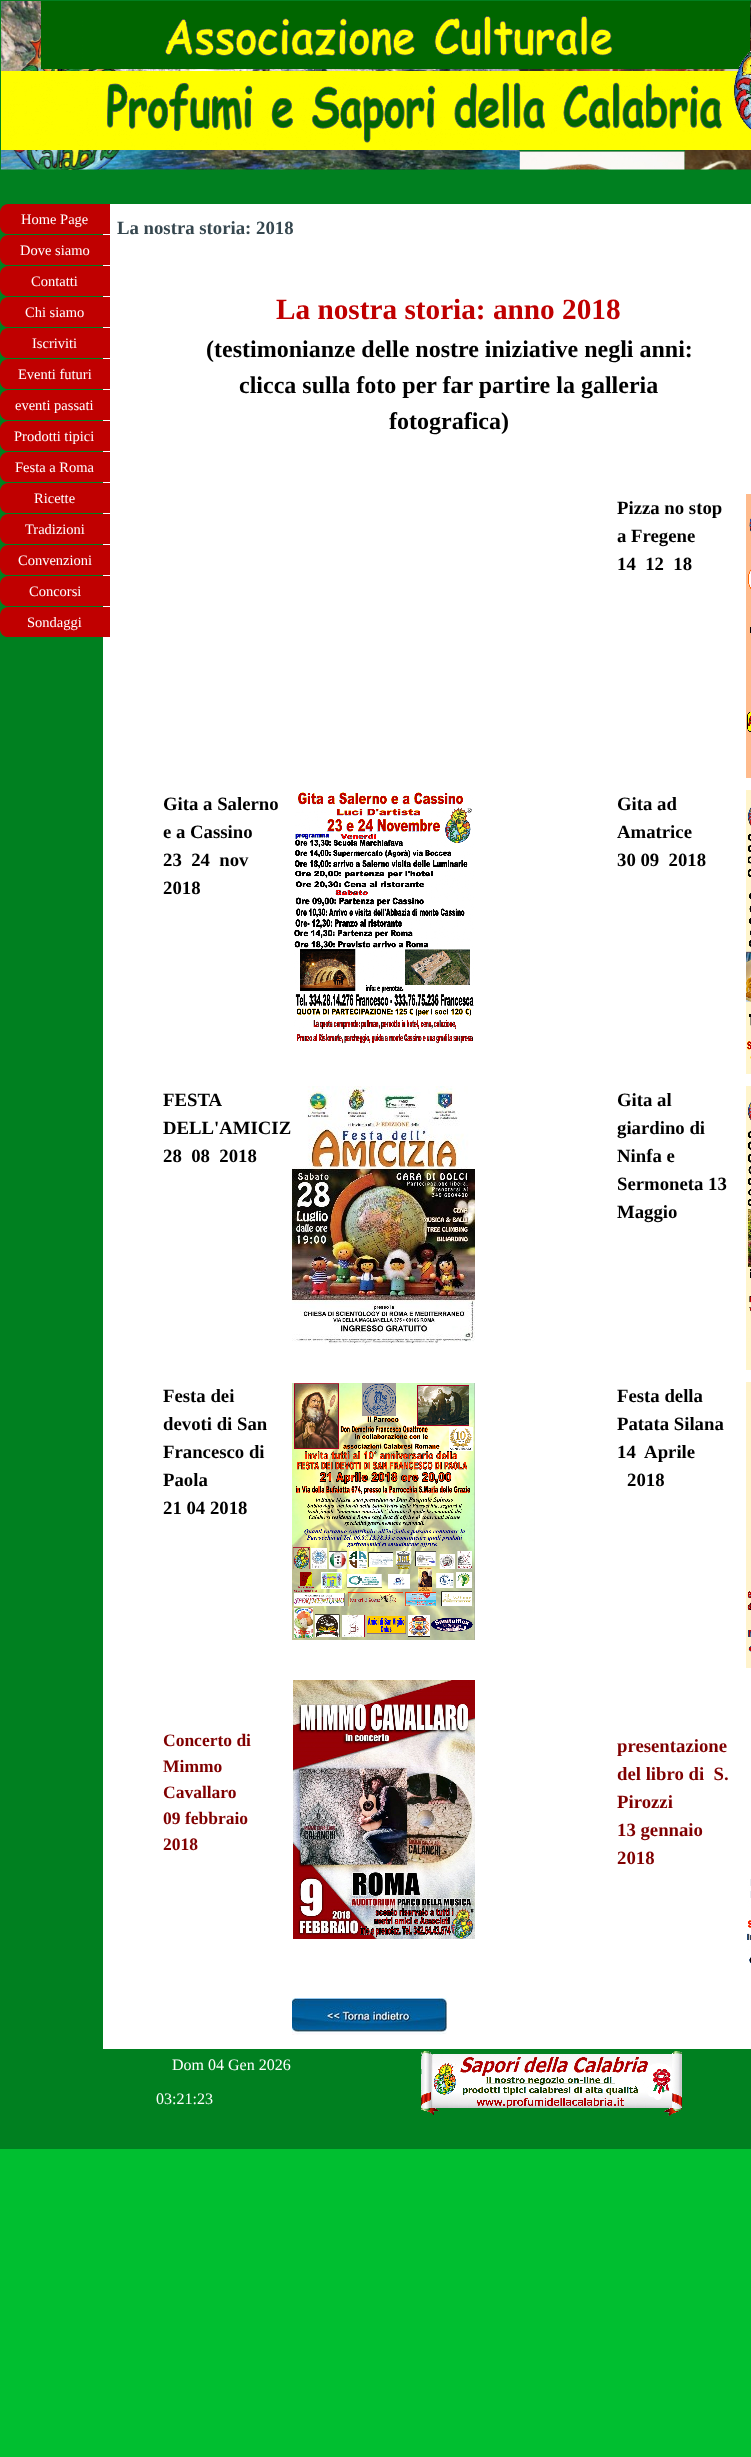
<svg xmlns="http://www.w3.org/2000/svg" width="751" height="2457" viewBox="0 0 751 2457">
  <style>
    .t1 { font: 14.5px Liberation Serif; fill: #fff; }
    .t2 { font: bold 18.75px Liberation Serif; fill: #36474f; }
    .t3 { font: bold 29.25px Liberation Serif; fill: #c00000; }
    .t4 { font: bold 24px Liberation Serif; fill: #000; }
    .t5 { font: bold 18.75px Liberation Serif; fill: #000; }
    .t6 { font: bold 17.5px Liberation Serif; fill: #800000; }
    .t7 { font: bold 18.75px Liberation Serif; fill: #800000; }
    .t8 { font: 16px Liberation Serif; fill: #fff; }
  </style>
  <rect width="100%" height="100%" fill="#00bf30"/>
  <rect x="0" y="0" width="751" height="204" fill="#008020"/>
  <image x="1" y="1" width="750" height="169" href="images/1.png"/>
  <image x="41" y="1" width="709" height="68" href="images/2.png"/>
  <image x="1" y="71" width="750" height="79" href="images/4.png"/>
  <image x="731" y="49" width="20" height="81" href="images/3.png"/>
  <rect x="0" y="204" width="103" height="1845" fill="#008020"/>
  <rect x="103" y="204" width="648" height="1845" fill="#fff"/>
  <image x="0" y="204" width="110" height="30" href="images/5.png"/>
  <text x="21" y="224" class="t1">Home Page</text>
  <image x="0" y="235" width="110" height="30" href="images/5.png"/>
  <text x="20" y="255" class="t1">Dove siamo</text>
  <image x="0" y="266" width="110" height="30" href="images/5.png"/>
  <text x="31" y="286" class="t1">Contatti</text>
  <image x="0" y="297" width="110" height="30" href="images/5.png"/>
  <text x="25" y="317" class="t1">Chi siamo</text>
  <image x="0" y="328" width="110" height="30" href="images/5.png"/>
  <text x="32" y="348" class="t1">Iscriviti</text>
  <image x="0" y="359" width="110" height="30" href="images/5.png"/>
  <text x="18" y="379" class="t1">Eventi futuri</text>
  <image x="0" y="390" width="110" height="30" href="images/5.png"/>
  <text x="15" y="410" class="t1">eventi passati</text>
  <image x="0" y="421" width="110" height="30" href="images/5.png"/>
  <text x="14" y="441" class="t1">Prodotti tipici</text>
  <image x="0" y="452" width="110" height="30" href="images/5.png"/>
  <text x="15" y="472" class="t1">Festa a Roma</text>
  <image x="0" y="483" width="110" height="30" href="images/5.png"/>
  <text x="34" y="503" class="t1">Ricette</text>
  <image x="0" y="514" width="110" height="30" href="images/5.png"/>
  <text x="25" y="534" class="t1">Tradizioni</text>
  <image x="0" y="545" width="110" height="30" href="images/5.png"/>
  <text x="18" y="565" class="t1">Convenzioni</text>
  <image x="0" y="576" width="110" height="30" href="images/5.png"/>
  <text x="29" y="596" class="t1">Concorsi</text>
  <image x="0" y="607" width="110" height="30" href="images/5.png"/>
  <text x="27" y="627" class="t1">Sondaggi</text>
  <text x="117" y="234" class="t2">La nostra storia: 2018</text>
  <text x="276" y="319" class="t3">La nostra storia: anno 2018</text>
  <text x="206" y="357" class="t4">(testimonianze delle nostre iniziative negli anni:</text>
  <text x="239" y="393" class="t4">clicca sulla foto per far partire la galleria</text>
  <text x="389" y="429" class="t4">fotografica)</text>
  <text x="617" y="514" class="t5">Pizza no stop</text>
  <text x="617" y="542" class="t5">a Fregene</text>
  <text x="617" y="570" class="t5" xml:space="preserve">14  12  18</text>
  <image x="746" y="494" width="5" height="284" href="images/6.png"/>
  <text x="163" y="810" class="t5">Gita a Salerno</text>
  <text x="163" y="838" class="t5">e a Cassino</text>
  <text x="163" y="866" class="t5" xml:space="preserve">23  24  nov</text>
  <text x="163" y="894" class="t5">2018</text>
  <image x="294" y="792" width="180" height="252" href="images/7.png"/>
  <text x="617" y="810" class="t5">Gita ad</text>
  <text x="617" y="838" class="t5">Amatrice</text>
  <text x="617" y="866" class="t5" xml:space="preserve">30 09  2018</text>
  <image x="746" y="790" width="5" height="284" href="images/8.png"/>
  <text x="163" y="1106" class="t5">FESTA</text>
  <text x="163" y="1134" class="t5">DELL'AMICIZ</text>
  <text x="163" y="1162" class="t5" xml:space="preserve">28  08  2018</text>
  <image x="292" y="1086" width="183" height="259" href="images/9.png"/>
  <text x="617" y="1106" class="t5">Gita al</text>
  <text x="617" y="1134" class="t5">giardino di</text>
  <text x="617" y="1162" class="t5">Ninfa e</text>
  <text x="617" y="1190" class="t5">Sermoneta 13</text>
  <text x="617" y="1218" class="t5">Maggio</text>
  <image x="746" y="1086" width="5" height="284" href="images/10.png"/>
  <text x="163" y="1402" class="t5">Festa dei</text>
  <text x="163" y="1430" class="t5">devoti di San</text>
  <text x="163" y="1458" class="t5">Francesco di</text>
  <text x="163" y="1486" class="t5">Paola</text>
  <text x="163" y="1514" class="t5">21 04 2018</text>
  <image x="292" y="1383" width="183" height="257" href="images/11.png"/>
  <text x="617" y="1402" class="t5">Festa della</text>
  <text x="617" y="1430" class="t5">Patata Silana</text>
  <text x="617" y="1458" class="t5" xml:space="preserve">14  Aprile</text>
  <text x="627" y="1486" class="t5">2018</text>
  <image x="746" y="1382" width="5" height="286" href="images/12.png"/>
  <text x="163" y="1746" class="t6">Concerto di</text>
  <text x="163" y="1772" class="t6">Mimmo</text>
  <text x="163" y="1798" class="t6">Cavallaro</text>
  <text x="163" y="1824" class="t6">09 febbraio</text>
  <text x="163" y="1850" class="t6">2018</text>
  <image x="293" y="1680" width="182" height="259" href="images/13.png"/>
  <text x="617" y="1752" class="t7">presentazione</text>
  <text x="617" y="1780" class="t7" xml:space="preserve">del libro di  S.</text>
  <text x="617" y="1808" class="t7">Pirozzi</text>
  <text x="617" y="1836" class="t7">13 gennaio</text>
  <text x="617" y="1864" class="t7">2018</text>
  <image x="747" y="1879" width="4" height="84" href="images/14.png"/>
  <image x="292" y="1998" width="155" height="37" href="images/15.png"/>
  <rect x="0" y="2049" width="751" height="100" fill="#008020"/>
  <text x="172" y="2070" class="t8">Dom 04 Gen 2026</text>
  <image x="421" y="2051" width="261" height="65" href="images/16.png"/>
  <text x="156" y="2104" class="t8">03:21:23</text>
</svg>
